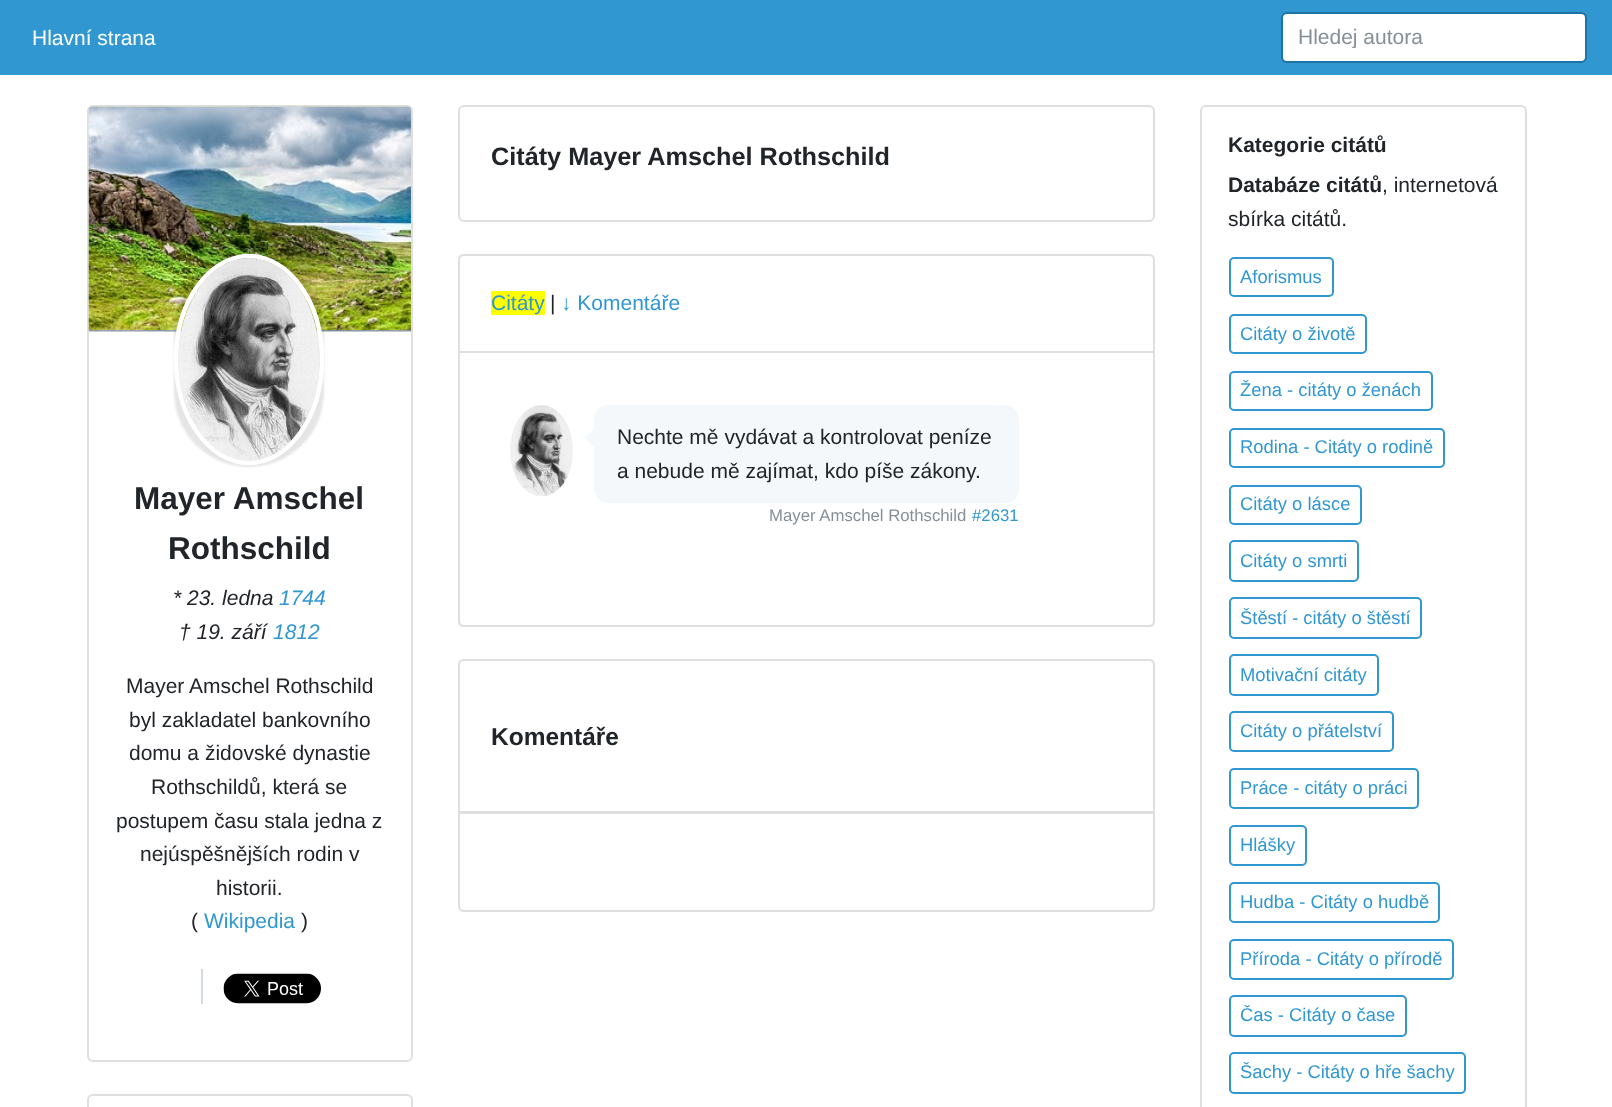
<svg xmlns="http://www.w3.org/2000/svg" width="1612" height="1107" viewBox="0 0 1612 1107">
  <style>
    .t1 { font: 21px Liberation Sans; fill: #fff; }
    .t2 { font: 21px Liberation Sans; fill: #868e96; }
    .t3 { font: bold 31.5px Liberation Sans; fill: #212529; }
    .t4 { font: italic 21px Liberation Sans; fill: #212529; }
    .t5 { font: italic 21px Liberation Sans; fill: #3097d1; }
    .t6 { font: 21px Liberation Sans; fill: #212529; }
    .t7 { font: 21px Liberation Sans; fill: #3097d1; }
    .t8 { font: bold 25.25px Liberation Sans; fill: #212529; }
    .t9 { font: 16.75px Liberation Sans; fill: #868e96; }
    .t10 { font: 16.75px Liberation Sans; fill: #3097d1; }
    .t11 { font: bold 24.5px Liberation Sans; fill: #212529; }
    .t12 { font: bold 21px Liberation Sans; fill: #212529; }
    .t13 { font: 18.4px Liberation Sans; fill: #3097d1; }
  </style>
  <defs>
    <clipPath id="clip1"><rect x="1298" y="24" width="271" height="24"/></clipPath>
  </defs>
  <rect width="100%" height="100%" fill="#fff"/>
  <rect x="0" y="0" width="1612" height="75" fill="#3097d1"/>
  <text x="32" y="45" class="t1">Hlavní strana</text>
  <rect x="1282" y="13" width="304" height="49" rx="5" fill="#fff" stroke="#1c73a5" stroke-width="2"/>
  <g clip-path="url(#clip1)">
    <text x="1298" y="44" class="t2">Hledej autora</text>
  </g>
  <rect x="88" y="106" width="324" height="955" rx="5" fill="none" stroke="#dfdfdf" stroke-width="2"/>
  <rect x="89" y="110" width="322" height="222" fill="#00000008"/>
  <image x="88" y="106" width="323" height="226" href="images/1.png"/>
  <rect x="89" y="330" width="322" height="2" fill="#0000001f"/>
  <rect x="174" y="255" width="150" height="212" rx="75" fill="#0000001a" filter="blur(1px)"/>
  <path d="M249 256C289 256 322 302 322 359C322 416.5 289 463 249 463C209 463 176 416.5 176 359C176 302 209 256 249 256Z" fill="none" stroke="#fff" stroke-width="4.5"/>
  <image x="179" y="258" width="141" height="203" href="images/2.png"/>
  <text x="134" y="509" class="t3">Mayer Amschel</text>
  <text x="168" y="559" class="t3">Rothschild</text>
  <text x="173" y="605" class="t4">* 23. ledna</text>
  <text x="279" y="605" class="t5">1744</text>
  <text x="179" y="639" class="t4">† 19. září</text>
  <text x="273" y="639" class="t5">1812</text>
  <text x="126" y="693" class="t6">Mayer Amschel Rothschild</text>
  <text x="129" y="727" class="t6">byl zakladatel bankovního</text>
  <text x="129" y="760" class="t6">domu a židovské dynastie</text>
  <text x="151" y="794" class="t6">Rothschildů, která se</text>
  <text x="116" y="828" class="t6">postupem času stala jedna z</text>
  <text x="140" y="861" class="t6">nejúspěšnějších rodin v</text>
  <text x="216" y="895" class="t6">historii.</text>
  <text x="191" y="928" class="t6">(</text>
  <text x="204" y="928" class="t7">Wikipedia</text>
  <text x="301" y="928" class="t6">)</text>
  <rect x="201" y="969" width="2" height="35" fill="#d4dbe0"/>
  <image x="223" y="973" width="98" height="31" href="images/3.png"/>
  <rect x="88" y="1095" width="324" height="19" rx="5" fill="none" stroke="#dfdfdf" stroke-width="2"/>
  <rect x="459" y="106" width="695" height="115" rx="5" fill="none" stroke="#dfdfdf" stroke-width="2"/>
  <text x="491" y="165" class="t8">Citáty Mayer Amschel Rothschild</text>
  <path d="M464 255H1149C1152 255 1154 257 1154 260V352H459V260C459 257 461 255 464 255Z" fill="none" stroke="#dfdfdf" stroke-width="2"/>
  <rect x="491" y="291" width="54" height="24" fill="#ff0"/>
  <text x="491" y="310" class="t7">Citáty</text>
  <text x="550" y="310" class="t6">|</text>
  <text x="561" y="310" class="t7">↓ Komentáře</text>
  <path d="M459 352H1154V621C1154 624 1152 626 1149 626H464C461 626 459 624 459 621Z" fill="#fff" stroke="#dfdfdf" stroke-width="2"/>
  <image x="510" y="405" width="63" height="92" href="images/4.png"/>
  <rect x="594" y="405" width="425" height="98" rx="14" fill="#f5f8fa"/>
  <path d="M594 429V447L585 438Z" fill="#f5f8fa"/>
  <text x="617" y="444" class="t6">Nechte mě vydávat a kontrolovat peníze</text>
  <text x="617" y="478" class="t6">a nebude mě zajímat, kdo píše zákony.</text>
  <text x="769" y="521" class="t9">Mayer Amschel Rothschild</text>
  <text x="972" y="521" class="t10">#2631</text>
  <path d="M464 660H1149C1152 660 1154 662 1154 665V812H459V665C459 662 461 660 464 660Z" fill="none" stroke="#dfdfdf" stroke-width="2"/>
  <text x="491" y="745" class="t11">Komentáře</text>
  <path d="M459 813H1154V906C1154 909 1152 911 1149 911H464C461 911 459 909 459 906Z" fill="#fff" stroke="#dfdfdf" stroke-width="2"/>
  <rect x="1201" y="106" width="325" height="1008" rx="5" fill="none" stroke="#dfdfdf" stroke-width="2"/>
  <text x="1228" y="152" class="t12">Kategorie citátů</text>
  <text x="1228" y="192" class="t12">Databáze citátů</text>
  <text x="1382" y="192" class="t6">, internetová</text>
  <text x="1228" y="226" class="t6">sbírka citátů.</text>
  <rect x="1230" y="258" width="103" height="38" rx="4" fill="none" stroke="#3097d1" stroke-width="2"/>
  <text x="1240" y="283" class="t13">Aforismus</text>
  <rect x="1230" y="315" width="136" height="38" rx="4" fill="none" stroke="#3097d1" stroke-width="2"/>
  <text x="1240" y="340" class="t13">Citáty o životě</text>
  <rect x="1230" y="372" width="202" height="38" rx="4" fill="none" stroke="#3097d1" stroke-width="2"/>
  <text x="1240" y="396" class="t13">Žena - citáty o ženách</text>
  <rect x="1230" y="429" width="214" height="38" rx="4" fill="none" stroke="#3097d1" stroke-width="2"/>
  <text x="1240" y="453" class="t13">Rodina - Citáty o rodině</text>
  <rect x="1230" y="486" width="131" height="38" rx="4" fill="none" stroke="#3097d1" stroke-width="2"/>
  <text x="1240" y="510" class="t13">Citáty o lásce</text>
  <rect x="1230" y="541" width="128" height="40" rx="4" fill="none" stroke="#3097d1" stroke-width="2"/>
  <text x="1240" y="567" class="t13">Citáty o smrti</text>
  <rect x="1230" y="598" width="191" height="40" rx="4" fill="none" stroke="#3097d1" stroke-width="2"/>
  <text x="1240" y="624" class="t13">Štěstí - citáty o štěstí</text>
  <rect x="1230" y="655" width="148" height="40" rx="4" fill="none" stroke="#3097d1" stroke-width="2"/>
  <text x="1240" y="681" class="t13">Motivační citáty</text>
  <rect x="1230" y="712" width="163" height="39" rx="4" fill="none" stroke="#3097d1" stroke-width="2"/>
  <text x="1240" y="737" class="t13">Citáty o přátelství</text>
  <rect x="1230" y="769" width="188" height="39" rx="4" fill="none" stroke="#3097d1" stroke-width="2"/>
  <text x="1240" y="794" class="t13">Práce - citáty o práci</text>
  <rect x="1230" y="826" width="76" height="39" rx="4" fill="none" stroke="#3097d1" stroke-width="2"/>
  <text x="1240" y="851" class="t13">Hlášky</text>
  <rect x="1230" y="883" width="209" height="39" rx="4" fill="none" stroke="#3097d1" stroke-width="2"/>
  <text x="1240" y="908" class="t13">Hudba - Citáty o hudbě</text>
  <rect x="1230" y="940" width="223" height="39" rx="4" fill="none" stroke="#3097d1" stroke-width="2"/>
  <text x="1240" y="965" class="t13">Příroda - Citáty o přírodě</text>
  <rect x="1230" y="996" width="176" height="40" rx="4" fill="none" stroke="#3097d1" stroke-width="2"/>
  <text x="1240" y="1021" class="t13">Čas - Citáty o čase</text>
  <rect x="1230" y="1053" width="235" height="40" rx="4" fill="none" stroke="#3097d1" stroke-width="2"/>
  <text x="1240" y="1078" class="t13">Šachy - Citáty o hře šachy</text>
</svg>
